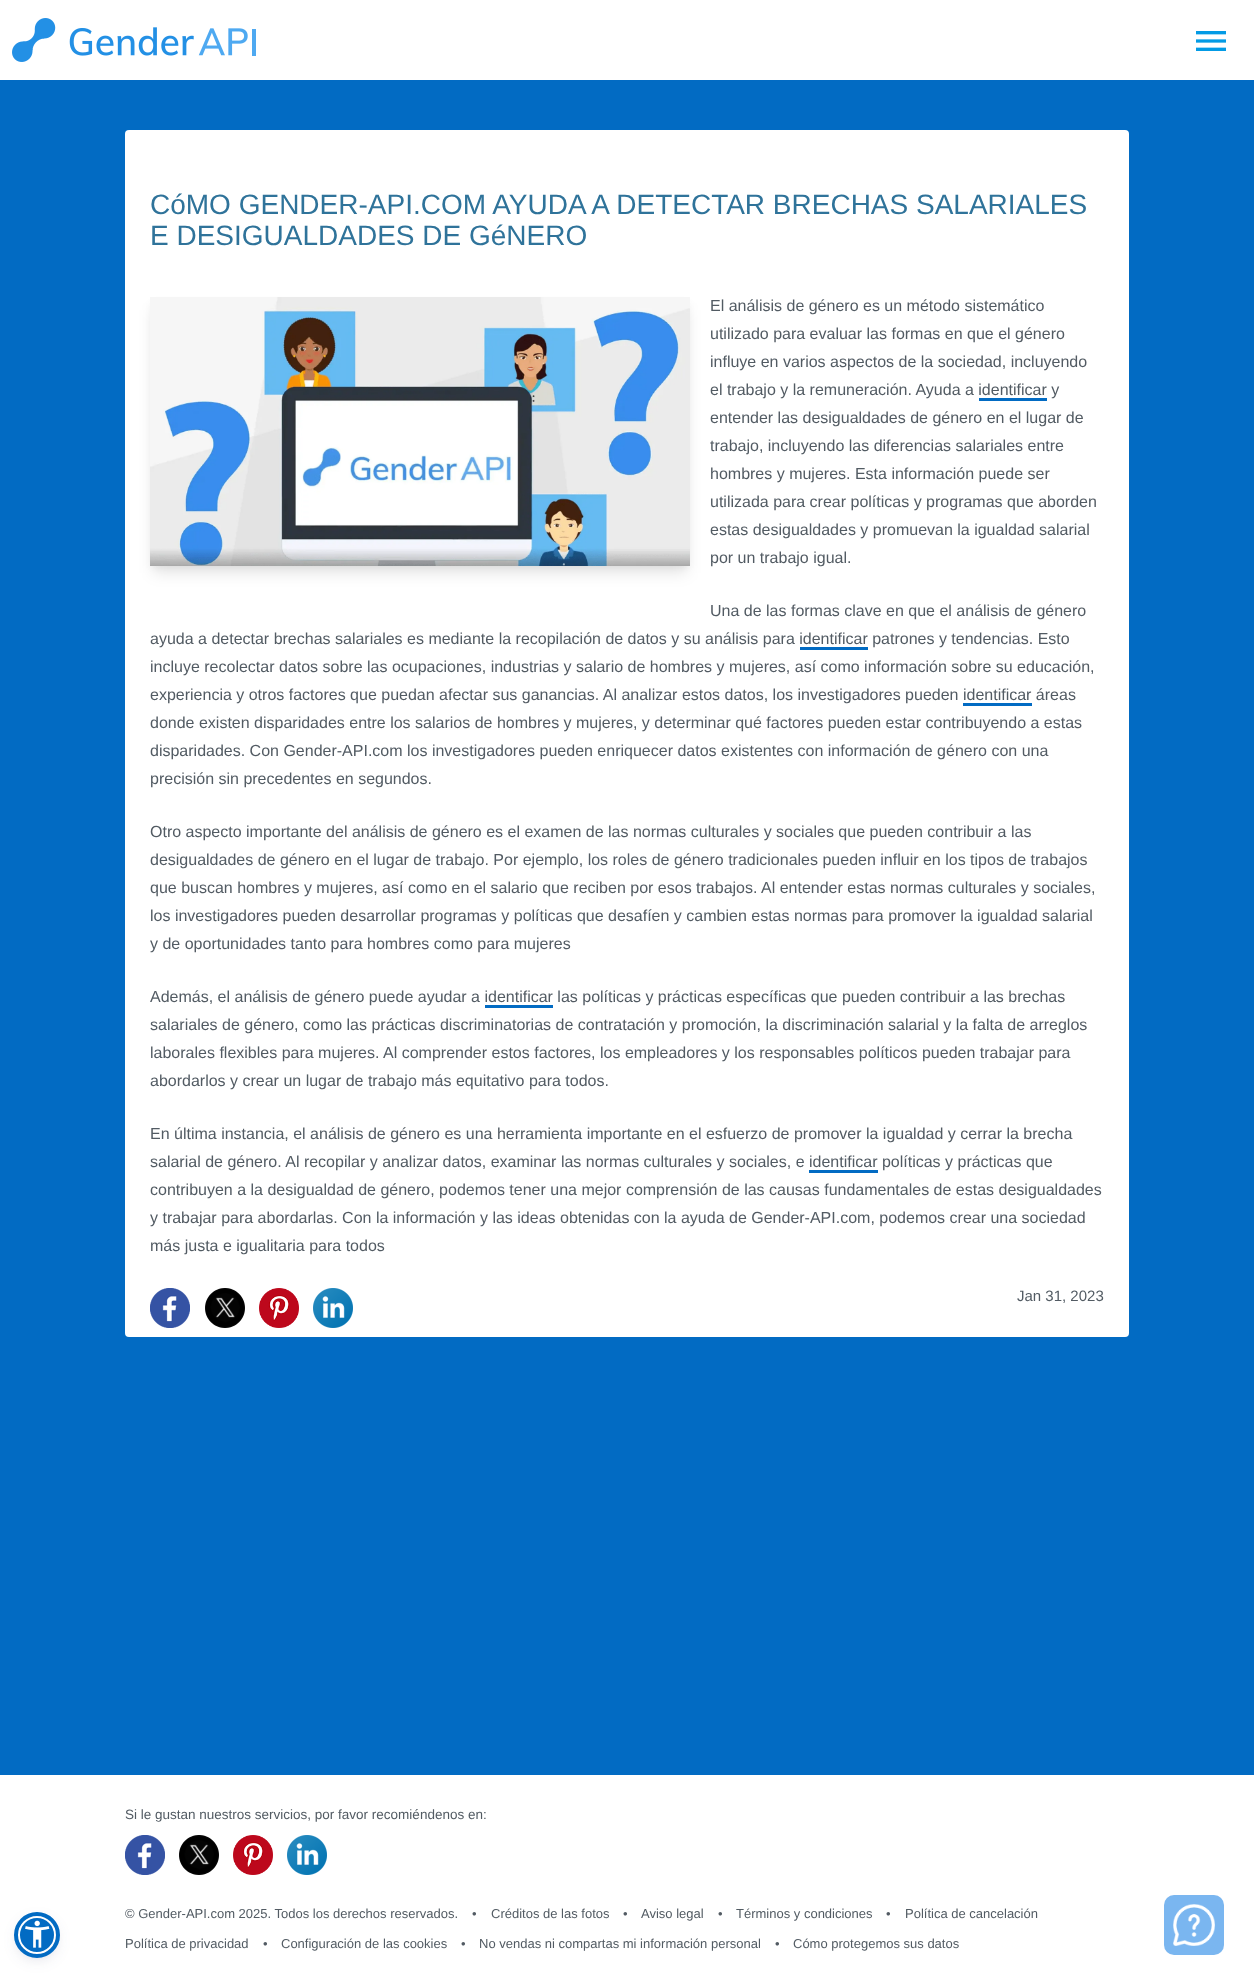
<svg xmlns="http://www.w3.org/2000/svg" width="1254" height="1985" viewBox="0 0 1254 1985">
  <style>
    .t1 { font: 28px Liberation Sans; fill: #2f739a; }
    .t2 { font: 16px Liberation Sans; fill: #525b63; }
    .t3 { font: 15px Liberation Sans; fill: #525b63; }
    .t4 { font: 13.5px Liberation Sans; fill: #525b63; }
    .t5 { font: 13px Liberation Sans; fill: #525b63; }
  </style>
  <rect width="100%" height="100%" fill="#026bc3"/>
  <rect x="0" y="0" width="1254" height="80" fill="#fff"/>
  <image x="12" y="18" width="244" height="44" href="images/1.png"/>
  <image x="1196" y="31" width="30" height="20" href="images/2.png"/>
  <rect x="0" y="1775" width="1254" height="210" fill="#fff"/>
  <rect x="18" y="1918" width="38" height="38" rx="19" fill="#5d649433" filter="blur(2px)"/>
  <rect x="18" y="1921" width="38" height="38" rx="19" fill="#252c6126" filter="blur(7.5px)"/>
  <circle cx="37" cy="1935" r="18" fill="#026bc3" stroke="#fff" stroke-width="2"/>
  <circle cx="37" cy="1935" r="21" fill="none" stroke="#026bc3" stroke-width="4"/>
  <image x="25" y="1920" width="25" height="28" href="images/3.png"/>
  <rect x="125" y="130" width="1004" height="1207" rx="4" fill="#fff"/>
  <text x="150" y="214" class="t1">CóMO GENDER-API.COM AYUDA A DETECTAR BRECHAS SALARIALES</text>
  <text x="150" y="245" class="t1">E DESIGUALDADES DE GéNERO</text>
  <rect x="153" y="310" width="534" height="263" fill="#0000001a" filter="blur(7.5px)"/>
  <rect x="152" y="303" width="536" height="265" fill="#0000000d" filter="blur(3px)"/>
  <image x="150" y="297" width="540" height="269" href="images/4.png"/>
  <text x="710" y="311" class="t2">El análisis de género es un método sistemático</text>
  <text x="710" y="339" class="t2">utilizado para evaluar las formas en que el género</text>
  <text x="710" y="367" class="t2">influye en varios aspectos de la sociedad, incluyendo</text>
  <text x="710" y="395" class="t2">el trabajo y la remuneración. Ayuda a identificar y</text>
  <rect x="979" y="398" width="68" height="3" fill="#026bc3"/>
  <text x="710" y="423" class="t2">entender las desigualdades de género en el lugar de</text>
  <text x="710" y="451" class="t2">trabajo, incluyendo las diferencias salariales entre</text>
  <text x="710" y="479" class="t2">hombres y mujeres. Esta información puede ser</text>
  <text x="710" y="507" class="t2">utilizada para crear políticas y programas que aborden</text>
  <text x="710" y="535" class="t2">estas desigualdades y promuevan la igualdad salarial</text>
  <text x="710" y="563" class="t2">por un trabajo igual.</text>
  <text x="710" y="616" class="t2">Una de las formas clave en que el análisis de género</text>
  <text x="150" y="644" class="t2">ayuda a detectar brechas salariales es mediante la recopilación de datos y su análisis para identificar patrones y tendencias. Esto</text>
  <rect x="800" y="647" width="68" height="3" fill="#026bc3"/>
  <text x="150" y="672" class="t2">incluye recolectar datos sobre las ocupaciones, industrias y salario de hombres y mujeres, así como información sobre su educación,</text>
  <text x="150" y="700" class="t2">experiencia y otros factores que puedan afectar sus ganancias. Al analizar estos datos, los investigadores pueden identificar áreas</text>
  <rect x="963" y="703" width="69" height="3" fill="#026bc3"/>
  <text x="150" y="728" class="t2">donde existen disparidades entre los salarios de hombres y mujeres, y determinar qué factores pueden estar contribuyendo a estas</text>
  <text x="150" y="756" class="t2">disparidades. Con Gender-API.com los investigadores pueden enriquecer datos existentes con información de género con una</text>
  <text x="150" y="784" class="t2">precisión sin precedentes en segundos.</text>
  <text x="150" y="837" class="t2">Otro aspecto importante del análisis de género es el examen de las normas culturales y sociales que pueden contribuir a las</text>
  <text x="150" y="865" class="t2">desigualdades de género en el lugar de trabajo. Por ejemplo, los roles de género tradicionales pueden influir en los tipos de trabajos</text>
  <text x="150" y="893" class="t2">que buscan hombres y mujeres, así como en el salario que reciben por esos trabajos. Al entender estas normas culturales y sociales,</text>
  <text x="150" y="921" class="t2">los investigadores pueden desarrollar programas y políticas que desafíen y cambien estas normas para promover la igualdad salarial</text>
  <text x="150" y="949" class="t2">y de oportunidades tanto para hombres como para mujeres</text>
  <text x="150" y="1002" class="t2">Además, el análisis de género puede ayudar a identificar las políticas y prácticas específicas que pueden contribuir a las brechas</text>
  <rect x="485" y="1005" width="68" height="3" fill="#026bc3"/>
  <text x="150" y="1030" class="t2">salariales de género, como las prácticas discriminatorias de contratación y promoción, la discriminación salarial y la falta de arreglos</text>
  <text x="150" y="1058" class="t2">laborales flexibles para mujeres. Al comprender estos factores, los empleadores y los responsables políticos pueden trabajar para</text>
  <text x="150" y="1086" class="t2">abordarlos y crear un lugar de trabajo más equitativo para todos.</text>
  <text x="150" y="1139" class="t2">En última instancia, el análisis de género es una herramienta importante en el esfuerzo de promover la igualdad y cerrar la brecha</text>
  <text x="150" y="1167" class="t2">salarial de género. Al recopilar y analizar datos, examinar las normas culturales y sociales, e identificar políticas y prácticas que</text>
  <rect x="809" y="1170" width="69" height="3" fill="#026bc3"/>
  <text x="150" y="1195" class="t2">contribuyen a la desigualdad de género, podemos tener una mejor comprensión de las causas fundamentales de estas desigualdades</text>
  <text x="150" y="1223" class="t2">y trabajar para abordarlas. Con la información y las ideas obtenidas con la ayuda de Gender-API.com, podemos crear una sociedad</text>
  <text x="150" y="1251" class="t2">más justa e igualitaria para todos</text>
  <image x="150" y="1288" width="40" height="40" href="images/5.png"/>
  <image x="205" y="1288" width="40" height="40" href="images/6.png"/>
  <image x="259" y="1288" width="40" height="40" href="images/7.png"/>
  <image x="313" y="1288" width="40" height="40" href="images/8.png"/>
  <text x="1017" y="1301" class="t3">Jan 31, 2023</text>
  <text x="125" y="1819" class="t4">Si le gustan nuestros servicios, por favor recomiéndenos en:</text>
  <image x="125" y="1835" width="40" height="40" href="images/5.png"/>
  <image x="179" y="1835" width="40" height="40" href="images/6.png"/>
  <image x="233" y="1835" width="40" height="40" href="images/9.png"/>
  <image x="287" y="1835" width="40" height="40" href="images/8.png"/>
  <text x="125" y="1918" class="t5">© Gender-API.com 2025. Todos los derechos reservados.</text>
  <text x="472" y="1918" class="t5">•</text>
  <text x="491" y="1918" class="t5">Créditos de las fotos</text>
  <text x="623" y="1918" class="t5">•</text>
  <text x="641" y="1918" class="t5">Aviso legal</text>
  <text x="718" y="1918" class="t5">•</text>
  <text x="736" y="1918" class="t5">Términos y condiciones</text>
  <text x="886" y="1918" class="t5">•</text>
  <text x="905" y="1918" class="t5">Política de cancelación</text>
  <text x="125" y="1948" class="t5">Política de privacidad</text>
  <text x="263" y="1948" class="t5">•</text>
  <text x="281" y="1948" class="t5">Configuración de las cookies</text>
  <text x="461" y="1948" class="t5">•</text>
  <text x="479" y="1948" class="t5">No vendas ni compartas mi información personal</text>
  <text x="775" y="1948" class="t5">•</text>
  <text x="793" y="1948" class="t5">Cómo protegemos sus datos</text>
  <rect x="1164" y="1895" width="60" height="60" rx="10" fill="#7ab6f0"/>
  <image x="1173" y="1904" width="42" height="42" href="images/10.png"/>
</svg>
